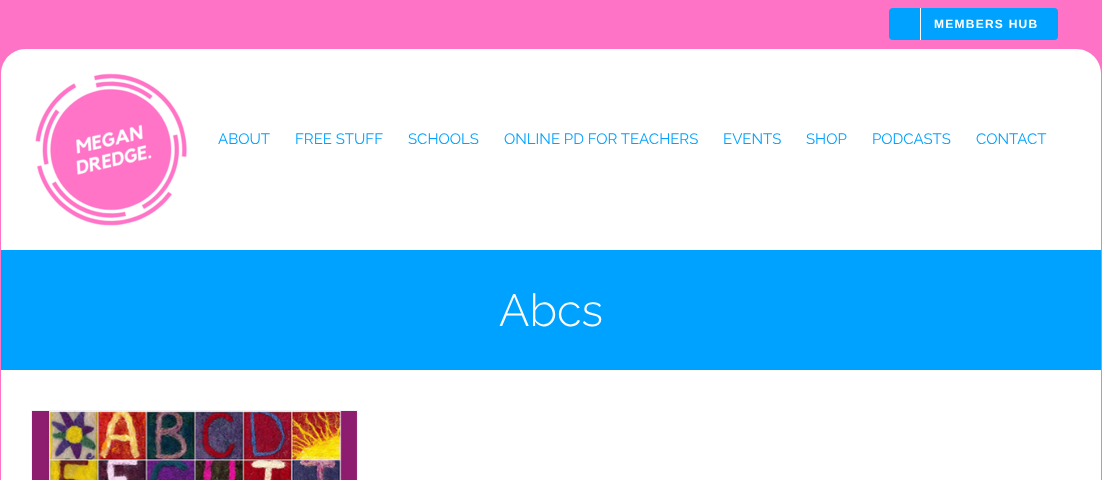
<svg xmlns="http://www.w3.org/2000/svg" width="1102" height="480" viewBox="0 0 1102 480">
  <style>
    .t1 { font: bold 12px Liberation Sans; letter-spacing: 1.25px; fill: #fff; }
    .t2 { font: 15px Raleway; fill: #00a2ff; }
    .t3 { font: 300 45px Raleway; fill: #fff; }
  </style>
  <rect width="100%" height="100%" fill="#fe73c6"/>
  <rect x="889" y="8" width="169" height="32" rx="4" fill="#00a2ff"/>
  <rect x="920" y="8" width="1" height="32" fill="#fff"/>
  <text x="934" y="28" class="t1">MEMBERS HUB</text>
  <path d="M26 49H1076C1090 49 1101 60 1101 74V250H1V74C1 60 12 49 26 49Z" fill="#fff"/>
  <image x="35" y="73" width="152" height="153" href="images/1.png"/>
  <text x="218" y="144" class="t2">ABOUT</text>
  <text x="295" y="144" class="t2">FREE STUFF</text>
  <text x="408" y="144" class="t2">SCHOOLS</text>
  <text x="504" y="144" class="t2">ONLINE PD FOR TEACHERS</text>
  <text x="723" y="144" class="t2">EVENTS</text>
  <text x="806" y="144" class="t2">SHOP</text>
  <text x="872" y="144" class="t2">PODCASTS</text>
  <text x="976" y="144" class="t2">CONTACT</text>
  <rect x="1" y="250" width="1100" height="120" fill="#00a2ff"/>
  <text x="499" y="326" class="t3">Abcs</text>
  <rect x="1" y="370" width="1100" height="110" fill="#fff"/>
  <rect x="31" y="410" width="327" height="1" fill="#f2f3f5"/>
  <rect x="357" y="410" width="1" height="70" fill="#f2f3f5"/>
  <rect x="31" y="410" width="1" height="70" fill="#f2f3f5"/>
  <image x="32" y="411" width="325" height="69" href="images/2.png"/>
</svg>
